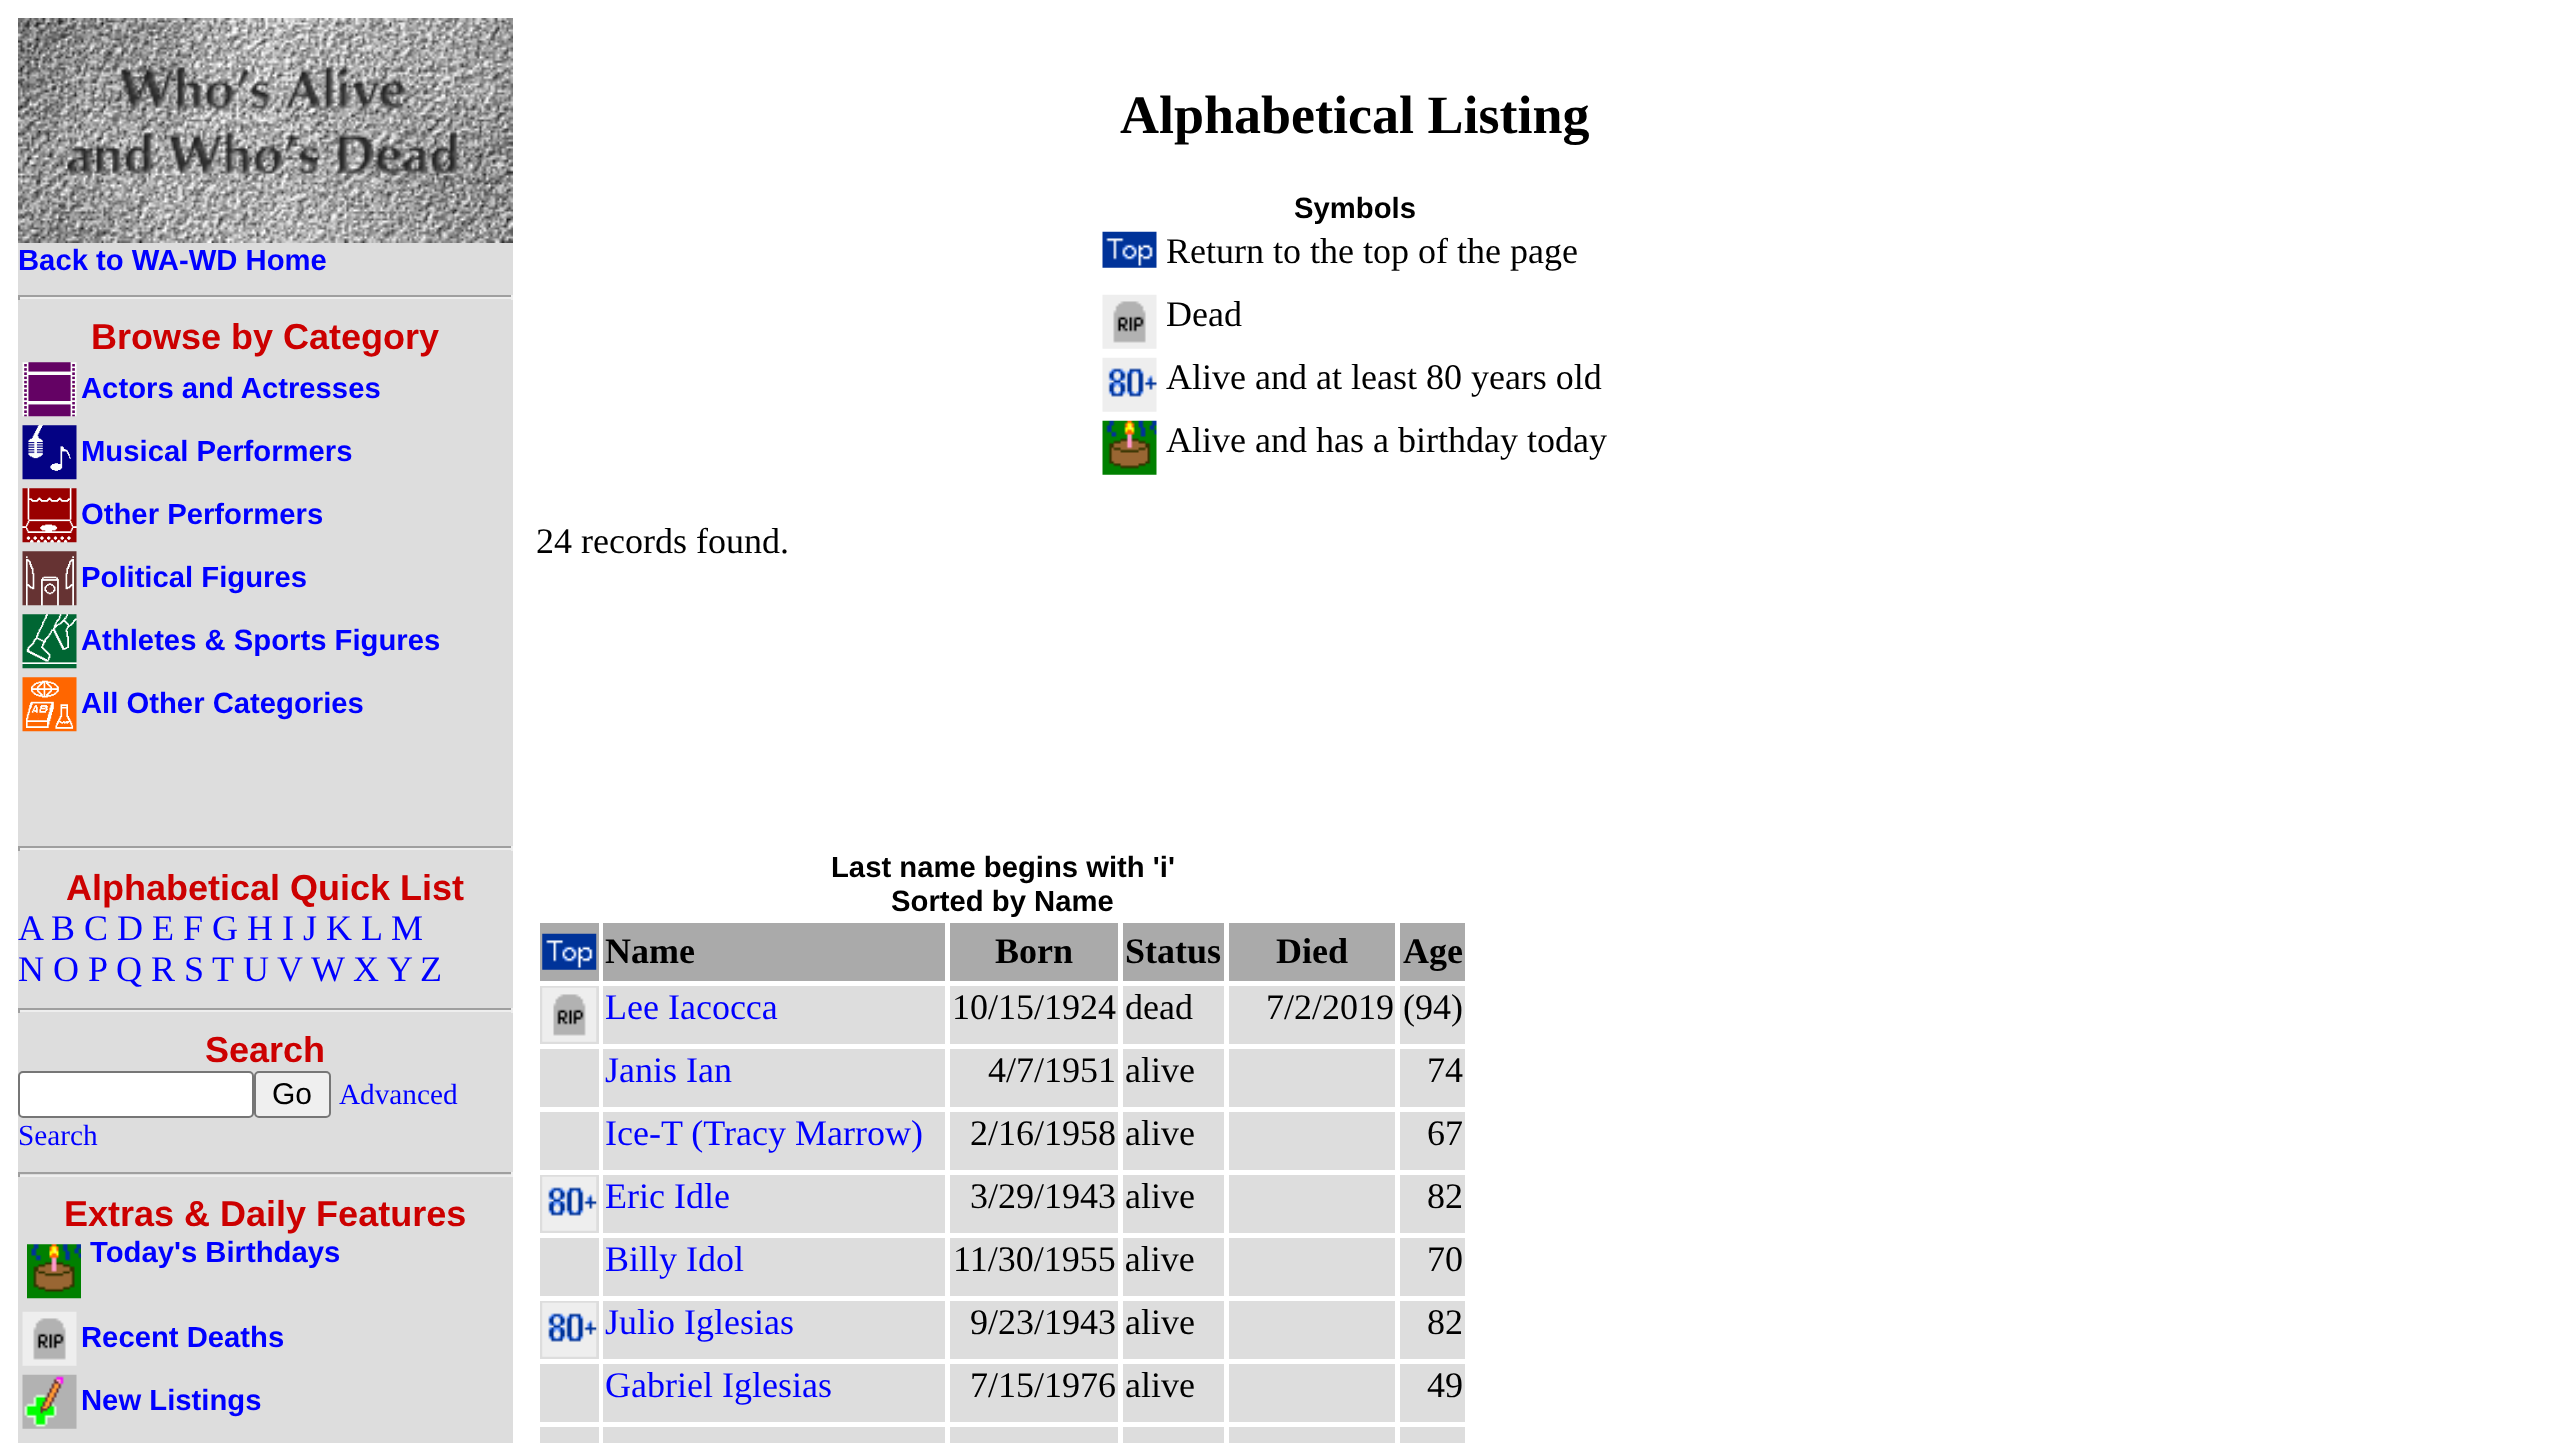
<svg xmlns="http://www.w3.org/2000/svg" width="2555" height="1443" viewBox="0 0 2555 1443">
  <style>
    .t1 { font: bold 29.25px Liberation Sans; fill: #00f; }
    .t2 { font: bold 36px Liberation Sans; fill: #c00; }
    .t3 { font: bold 54px Liberation Serif; fill: #000; }
    .t4 { font: bold 29.25px Liberation Sans; fill: #000; }
    .t5 { font: 36px Liberation Serif; fill: #000; }
    .t6 { font: 36px Liberation Serif; fill: #00f; }
    .t7 { font: 30px Liberation Sans; fill: #000; }
    .t8 { font: 29.25px Liberation Serif; fill: #00f; }
    .t9 { font: bold 36px Liberation Serif; fill: #000; }
  </style>
  <rect width="100%" height="100%" fill="#fff"/>
  <rect x="18" y="243" width="495" height="1200" fill="#ddd"/>
  <image x="18" y="18" width="495" height="225" href="images/1.png"/>
  <text x="18" y="270" class="t1">Back to WA-WD Home</text>
  <rect x="18" y="295" width="495" height="2" fill="#9f9f9f"/>
  <rect x="511" y="295" width="2" height="5" fill="#eee"/>
  <rect x="18" y="297" width="495" height="2" fill="#eee"/>
  <rect x="18" y="295" width="2" height="5" fill="#9f9f9f"/>
  <text x="91" y="349" class="t2">Browse by Category</text>
  <image x="22" y="362" width="55" height="55" href="images/2.png"/>
  <text x="81" y="398" class="t1">Actors and Actresses</text>
  <image x="22" y="425" width="55" height="55" href="images/3.png"/>
  <text x="81" y="461" class="t1">Musical Performers</text>
  <image x="22" y="488" width="55" height="55" href="images/4.png"/>
  <text x="81" y="524" class="t1">Other Performers</text>
  <image x="22" y="551" width="55" height="55" href="images/5.png"/>
  <text x="81" y="587" class="t1">Political Figures</text>
  <image x="22" y="614" width="55" height="55" href="images/6.png"/>
  <text x="81" y="650" class="t1">Athletes &amp; Sports Figures</text>
  <image x="22" y="677" width="55" height="55" href="images/7.png"/>
  <text x="81" y="713" class="t1">All Other Categories</text>
  <text x="1120" y="133" class="t3">Alphabetical Listing</text>
  <text x="1294" y="218" class="t4">Symbols</text>
  <image x="1102" y="231" width="55" height="37" href="images/8.png"/>
  <text x="1166" y="263" class="t5">Return to the top of the page</text>
  <image x="1102" y="294" width="55" height="55" href="images/9.png"/>
  <text x="1166" y="326" class="t5">Dead</text>
  <image x="1102" y="357" width="55" height="55" href="images/10.png"/>
  <text x="1166" y="389" class="t5">Alive and at least 80 years old</text>
  <image x="1102" y="420" width="55" height="55" href="images/11.png"/>
  <text x="1166" y="452" class="t5">Alive and has a birthday today</text>
  <text x="536" y="553" class="t5">24 records found.</text>
  <rect x="18" y="846" width="495" height="2" fill="#9f9f9f"/>
  <rect x="511" y="846" width="2" height="5" fill="#eee"/>
  <rect x="18" y="848" width="495" height="2" fill="#eee"/>
  <rect x="18" y="846" width="2" height="5" fill="#9f9f9f"/>
  <text x="66" y="900" class="t2">Alphabetical Quick List</text>
  <text x="18" y="940" class="t6">A</text>
  <text x="51" y="940" class="t6">B C D E F G H I J K L</text>
  <text x="391" y="940" class="t6">M</text>
  <text x="18" y="981" class="t6">N O P</text>
  <text x="116" y="981" class="t6">Q R S</text>
  <text x="212" y="981" class="t6">T</text>
  <text x="243" y="981" class="t6">U</text>
  <text x="277" y="981" class="t6">V</text>
  <text x="311" y="981" class="t6">W</text>
  <text x="353" y="981" class="t6">X</text>
  <text x="387" y="981" class="t6">Y</text>
  <text x="420" y="981" class="t6">Z</text>
  <rect x="18" y="1008" width="495" height="2" fill="#9f9f9f"/>
  <rect x="511" y="1008" width="2" height="5" fill="#eee"/>
  <rect x="18" y="1010" width="495" height="2" fill="#eee"/>
  <rect x="18" y="1008" width="2" height="5" fill="#9f9f9f"/>
  <text x="205" y="1062" class="t2">Search</text>
  <rect x="19" y="1072" width="234" height="45" rx="4" fill="#fff" stroke="#767676" stroke-width="2"/>
  <rect x="255" y="1072" width="75" height="45" rx="4" fill="#efefef" stroke="#767676" stroke-width="2"/>
  <text x="272" y="1104" class="t7">Go</text>
  <text x="339" y="1104" class="t8">Advanced</text>
  <text x="18" y="1145" class="t8">Search</text>
  <rect x="18" y="1172" width="495" height="2" fill="#9f9f9f"/>
  <rect x="511" y="1172" width="2" height="5" fill="#eee"/>
  <rect x="18" y="1175" width="495" height="2" fill="#eee"/>
  <rect x="18" y="1172" width="2" height="5" fill="#9f9f9f"/>
  <text x="64" y="1226" class="t2">Extras &amp; Daily Features</text>
  <image x="27" y="1244" width="54" height="55" href="images/12.png"/>
  <text x="90" y="1262" class="t1">Today's Birthdays</text>
  <image x="22" y="1311" width="55" height="55" href="images/13.png"/>
  <text x="81" y="1347" class="t1">Recent Deaths</text>
  <image x="22" y="1374" width="55" height="55" href="images/14.png"/>
  <text x="81" y="1410" class="t1">New Listings</text>
  <text x="831" y="877" class="t4">Last name begins with 'i'</text>
  <text x="891" y="911" class="t4">Sorted by Name</text>
  <rect x="540" y="923" width="59" height="58" fill="#aaa"/>
  <image x="542" y="933" width="55" height="37" href="images/15.png"/>
  <rect x="603" y="923" width="342" height="58" fill="#aaa"/>
  <text x="605" y="963" class="t9">Name</text>
  <rect x="950" y="923" width="168" height="58" fill="#aaa"/>
  <text x="995" y="963" class="t9">Born</text>
  <rect x="1123" y="923" width="101" height="58" fill="#aaa"/>
  <text x="1125" y="963" class="t9">Status</text>
  <rect x="1229" y="923" width="166" height="58" fill="#aaa"/>
  <text x="1276" y="963" class="t9">Died</text>
  <rect x="1400" y="923" width="65" height="58" fill="#aaa"/>
  <text x="1403" y="963" class="t9">Age</text>
  <rect x="540" y="986" width="59" height="58" fill="#ddd"/>
  <image x="542" y="987" width="55" height="55" href="images/16.png"/>
  <rect x="1123" y="986" width="101" height="58" fill="#ddd"/>
  <rect x="1400" y="986" width="65" height="58" fill="#ddd"/>
  <rect x="603" y="986" width="342" height="58" fill="#ddd"/>
  <text x="605" y="1019" class="t6">Lee Iacocca</text>
  <rect x="950" y="986" width="168" height="58" fill="#ddd"/>
  <text x="952" y="1019" class="t5">10/15/1924 dead</text>
  <rect x="1229" y="986" width="166" height="58" fill="#ddd"/>
  <text x="1266" y="1019" class="t5">7/2/2019 (94)</text>
  <rect x="540" y="1049" width="59" height="58" fill="#ddd"/>
  <rect x="1123" y="1049" width="101" height="58" fill="#ddd"/>
  <rect x="1229" y="1049" width="166" height="58" fill="#ddd"/>
  <rect x="603" y="1049" width="342" height="58" fill="#ddd"/>
  <text x="605" y="1082" class="t6">Janis Ian</text>
  <rect x="950" y="1049" width="168" height="58" fill="#ddd"/>
  <text x="988" y="1082" class="t5">4/7/1951 alive</text>
  <rect x="1400" y="1049" width="65" height="58" fill="#ddd"/>
  <text x="1427" y="1082" class="t5">74</text>
  <rect x="540" y="1112" width="59" height="58" fill="#ddd"/>
  <rect x="603" y="1112" width="342" height="58" fill="#ddd"/>
  <text x="605" y="1145" class="t6">Ice-T (Tracy Marrow)</text>
  <rect x="1123" y="1112" width="101" height="58" fill="#ddd"/>
  <rect x="1229" y="1112" width="166" height="58" fill="#ddd"/>
  <rect x="950" y="1112" width="168" height="58" fill="#ddd"/>
  <text x="970" y="1145" class="t5">2/16/1958 alive</text>
  <rect x="1400" y="1112" width="65" height="58" fill="#ddd"/>
  <text x="1427" y="1145" class="t5">67</text>
  <rect x="540" y="1175" width="59" height="58" fill="#ddd"/>
  <image x="542" y="1176" width="55" height="55" href="images/17.png"/>
  <rect x="603" y="1175" width="342" height="58" fill="#ddd"/>
  <text x="605" y="1208" class="t6">Eric Idle</text>
  <rect x="1123" y="1175" width="101" height="58" fill="#ddd"/>
  <rect x="1229" y="1175" width="166" height="58" fill="#ddd"/>
  <rect x="950" y="1175" width="168" height="58" fill="#ddd"/>
  <text x="970" y="1208" class="t5">3/29/1943 alive</text>
  <rect x="1400" y="1175" width="65" height="58" fill="#ddd"/>
  <text x="1427" y="1208" class="t5">82</text>
  <rect x="540" y="1238" width="59" height="58" fill="#ddd"/>
  <rect x="603" y="1238" width="342" height="58" fill="#ddd"/>
  <text x="605" y="1271" class="t6">Billy Idol</text>
  <rect x="1123" y="1238" width="101" height="58" fill="#ddd"/>
  <rect x="1229" y="1238" width="166" height="58" fill="#ddd"/>
  <rect x="950" y="1238" width="168" height="58" fill="#ddd"/>
  <text x="953" y="1271" class="t5">11/30/1955 alive</text>
  <rect x="1400" y="1238" width="65" height="58" fill="#ddd"/>
  <text x="1427" y="1271" class="t5">70</text>
  <rect x="540" y="1301" width="59" height="58" fill="#ddd"/>
  <image x="542" y="1302" width="55" height="55" href="images/17.png"/>
  <rect x="603" y="1301" width="342" height="58" fill="#ddd"/>
  <text x="605" y="1334" class="t6">Julio Iglesias</text>
  <rect x="1123" y="1301" width="101" height="58" fill="#ddd"/>
  <rect x="1229" y="1301" width="166" height="58" fill="#ddd"/>
  <rect x="950" y="1301" width="168" height="58" fill="#ddd"/>
  <text x="970" y="1334" class="t5">9/23/1943 alive</text>
  <rect x="1400" y="1301" width="65" height="58" fill="#ddd"/>
  <text x="1427" y="1334" class="t5">82</text>
  <rect x="540" y="1364" width="59" height="58" fill="#ddd"/>
  <rect x="603" y="1364" width="342" height="58" fill="#ddd"/>
  <text x="605" y="1397" class="t6">Gabriel Iglesias</text>
  <rect x="1123" y="1364" width="101" height="58" fill="#ddd"/>
  <rect x="1229" y="1364" width="166" height="58" fill="#ddd"/>
  <rect x="950" y="1364" width="168" height="58" fill="#ddd"/>
  <text x="970" y="1397" class="t5">7/15/1976 alive</text>
  <rect x="1400" y="1364" width="65" height="58" fill="#ddd"/>
  <text x="1427" y="1397" class="t5">49</text>
  <rect x="540" y="1427" width="59" height="16" fill="#ddd"/>
  <rect x="603" y="1427" width="342" height="16" fill="#ddd"/>
  <rect x="950" y="1427" width="168" height="16" fill="#ddd"/>
  <rect x="1123" y="1427" width="101" height="16" fill="#ddd"/>
  <rect x="1229" y="1427" width="166" height="16" fill="#ddd"/>
  <rect x="1400" y="1427" width="65" height="16" fill="#ddd"/>
</svg>
